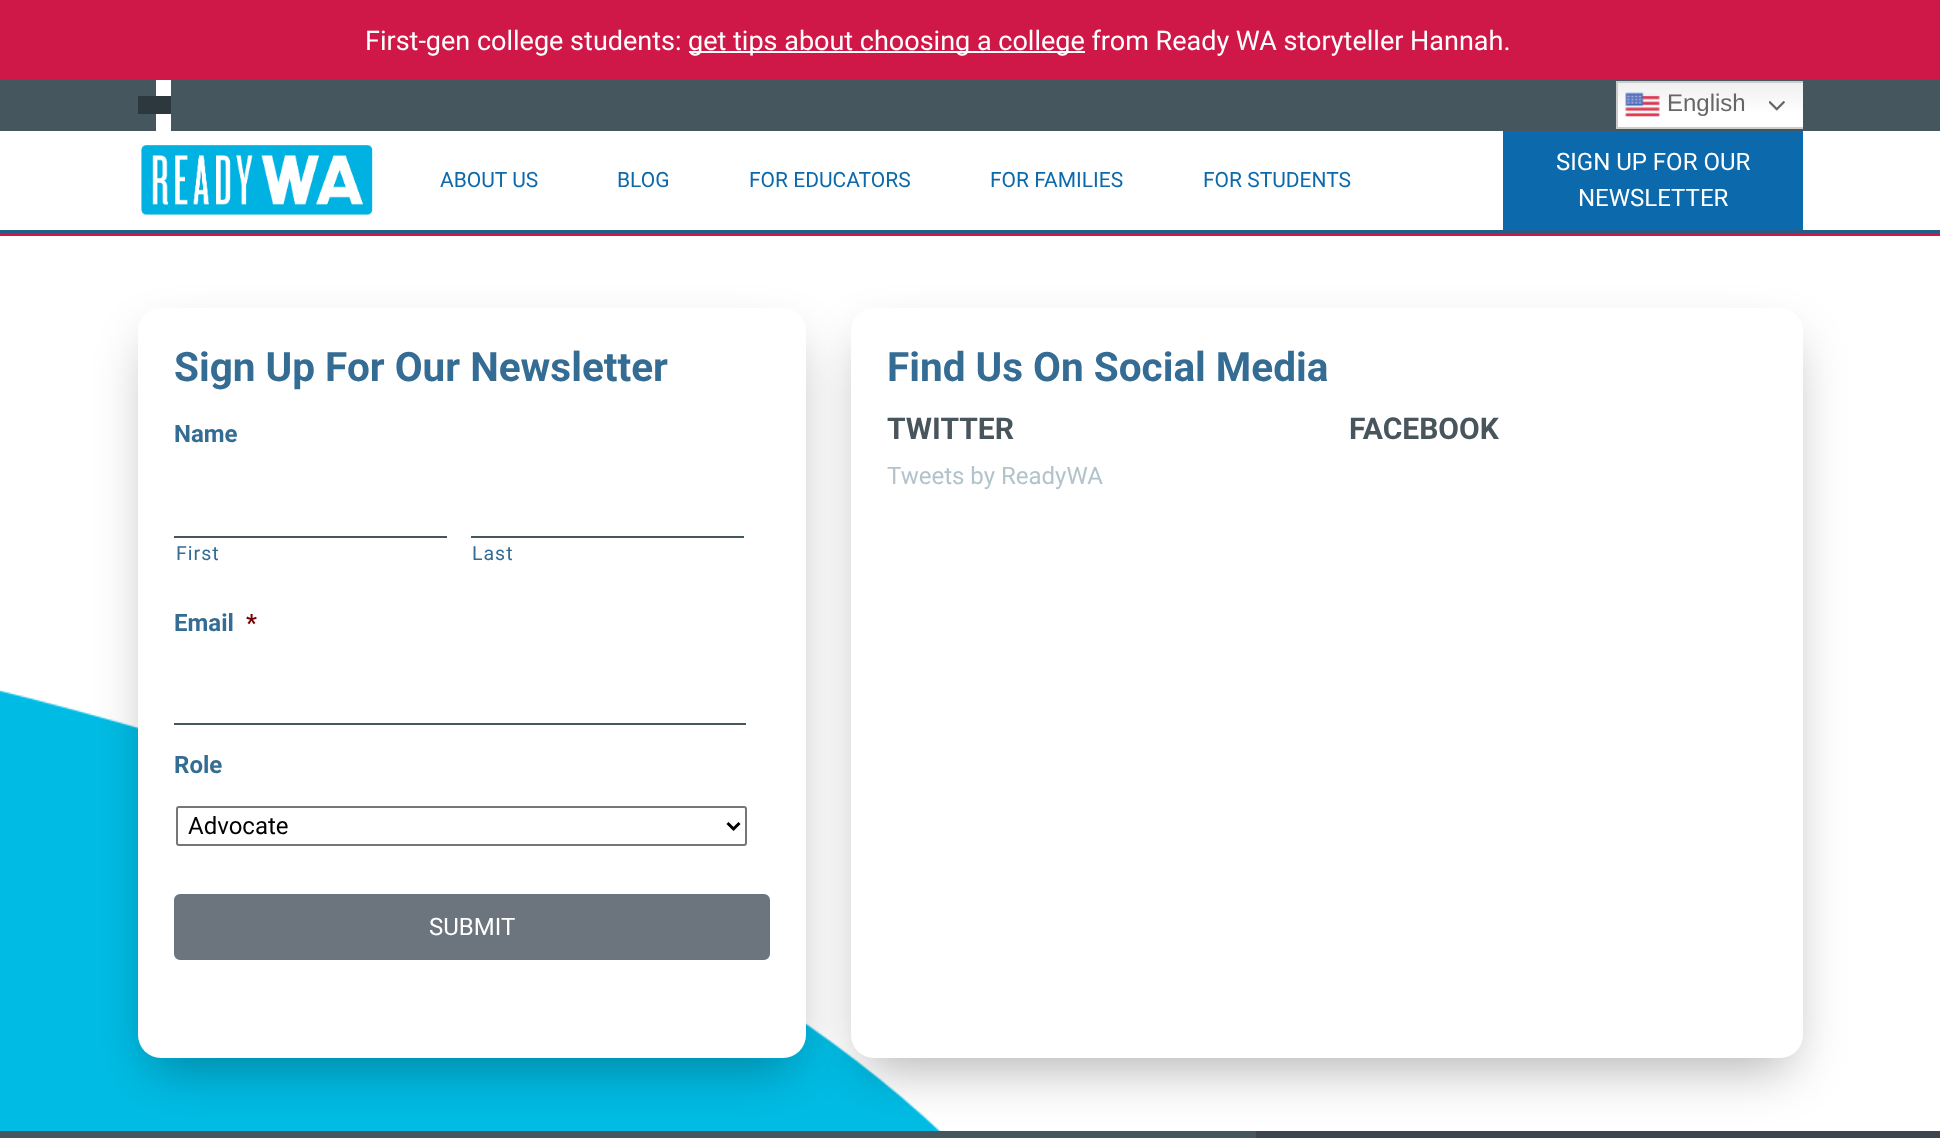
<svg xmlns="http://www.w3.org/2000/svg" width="1940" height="1138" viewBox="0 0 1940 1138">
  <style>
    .t1 { font: 27px Roboto; fill: #fff; }
    .t2 { font: 24px Liberation Sans; fill: #666; }
    .t3 { font: 21px Roboto; fill: #0c6aac; }
    .t4 { font: 24px Roboto; fill: #fff; }
    .t5 { font: bold 40.5px Roboto; fill: #346c94; }
    .t6 { font: bold 24px Roboto; fill: #346c94; }
    .t7 { font: 19.5px Roboto; letter-spacing: 1px; fill: #346c94; }
    .t8 { font: bold 24px Roboto; fill: #790000; }
    .t9 { font: 24px Roboto; fill: #000; }
    .t10 { font: bold 30px Roboto; fill: #49555c; }
    .t11 { font: 24px Roboto; fill: #b2c3cc; }
  </style>
  <defs>
    <linearGradient id="g1" gradientUnits="userSpaceOnUse" x1="1709" y1="81" x2="1709" y2="129"><stop offset="0" stop-color="#efefef"/><stop offset="0.7" stop-color="#fff"/></linearGradient>
    <clipPath id="clip1"><rect x="1616" y="81" width="187" height="48"/></clipPath>
  </defs>
  <rect width="100%" height="100%" fill="#fff"/>
  <rect x="0" y="80" width="1940" height="51" fill="#46565f"/>
  <rect x="0" y="0" width="1940" height="80" fill="#d01848"/>
  <text x="365" y="50" class="t1">First-gen college students:</text>
  <rect x="689" y="51" width="396" height="2" fill="#fff"/>
  <text x="688" y="50" class="t1">get tips about choosing a college from Ready WA storyteller Hannah.</text>
  <rect x="156" y="80" width="15" height="51" fill="#fff"/>
  <rect x="138" y="96" width="33" height="18" fill="#2c373e"/>
  <rect x="1618" y="83" width="185" height="44" fill="url(#g1)"/>
  <g clip-path="url(#clip1)">
    <rect x="1617" y="82" width="257" height="46" fill="none" stroke="#ccc" stroke-width="2"/>
  </g>
  <image x="1625" y="92" width="35" height="25" href="images/1.png"/>
  <text x="1667" y="111" class="t2">English</text>
  <image x="1769" y="101" width="16" height="10" href="images/2.png"/>
  <rect x="0" y="230" width="1940" height="3" fill="#245e86"/>
  <image x="141" y="145" width="232" height="71" href="images/3.png"/>
  <text x="440" y="187" class="t3">ABOUT US</text>
  <text x="617" y="187" class="t3">BLOG</text>
  <text x="749" y="187" class="t3">FOR EDUCATORS</text>
  <text x="990" y="187" class="t3">FOR FAMILIES</text>
  <text x="1203" y="187" class="t3">FOR STUDENTS</text>
  <rect x="1503" y="131" width="300" height="99" fill="#0c6aac"/>
  <text x="1556" y="170" class="t4">SIGN UP FOR OUR</text>
  <text x="1578" y="206" class="t4">NEWSLETTER</text>
  <image x="0" y="689" width="941" height="442" href="images/4.png"/>
  <rect x="0" y="233" width="1940" height="3" fill="#d01848"/>
  <rect x="150" y="342" width="644" height="726" rx="11" fill="#0000004d" filter="blur(26px)"/>
  <rect x="138" y="308" width="668" height="750" rx="23" fill="#fff"/>
  <text x="174" y="381" class="t5">Sign Up For Our Newsletter</text>
  <text x="174" y="442" class="t6">Name</text>
  <rect x="174" y="536" width="273" height="2" fill="#46565f"/>
  <text x="176" y="560" class="t7">First</text>
  <rect x="471" y="536" width="273" height="2" fill="#46565f"/>
  <text x="472" y="560" class="t7">Last</text>
  <text x="174" y="631" class="t6">Email</text>
  <text x="246" y="631" class="t8">*</text>
  <rect x="174" y="723" width="572" height="2" fill="#46565f"/>
  <text x="174" y="773" class="t6">Role</text>
  <rect x="177" y="807" width="569" height="38" rx="2" fill="none" stroke="#767676" stroke-width="2"/>
  <path d="M727.5 823L733.5 829L739.5 823" fill="none" stroke="#000" stroke-width="3"/>
  <text x="188" y="834" class="t9">Advocate</text>
  <rect x="175" y="895" width="594" height="64" rx="5" fill="#6c757d" stroke="#6c757d" stroke-width="2"/>
  <text x="429" y="935" class="t4">SUBMIT</text>
  <rect x="863" y="342" width="928" height="726" rx="11" fill="#0000004d" filter="blur(26px)"/>
  <rect x="851" y="308" width="952" height="750" rx="23" fill="#fff"/>
  <text x="887" y="381" class="t5">Find Us On Social Media</text>
  <text x="887" y="439" class="t10">TWITTER</text>
  <text x="887" y="484" class="t11">Tweets by ReadyWA</text>
  <text x="1349" y="439" class="t10">FACEBOOK</text>
  <rect x="0" y="1131" width="1256" height="7" fill="#46565f"/>
  <rect x="1256" y="1131" width="684" height="7" fill="#3d464e"/>
</svg>
